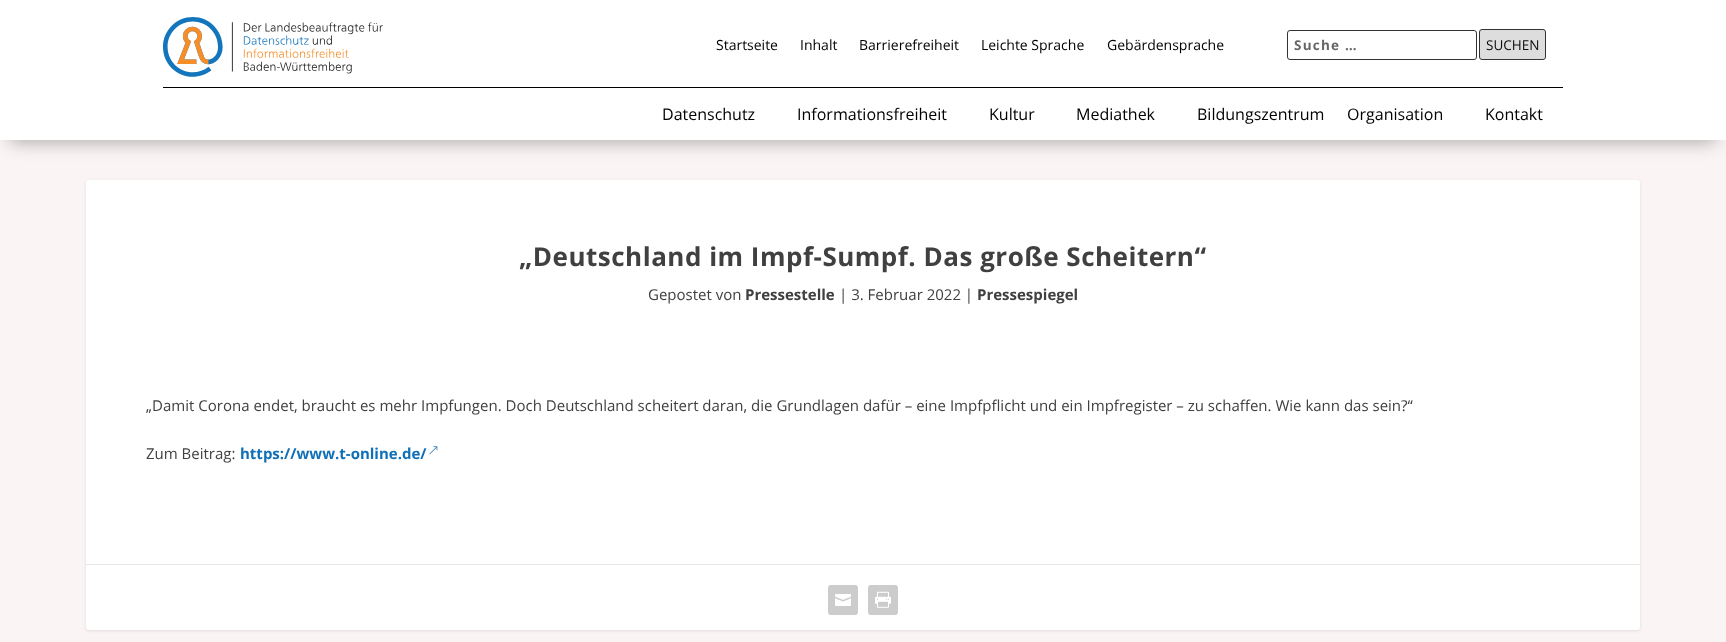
<svg xmlns="http://www.w3.org/2000/svg" width="1726" height="642" viewBox="0 0 1726 642">
  <style>
    .t1 { font: 14px Open Sans; fill: #000; }
    .t2 { font: bold 13.5px Open Sans; letter-spacing: 1.25px; fill: #666; }
    .t3 { font: 13.5px Open Sans; fill: #0b0b0b; }
    .t4 { font: 16px Open Sans; fill: #000; }
    .t5 { font: bold 26px Open Sans; letter-spacing: 0.5px; fill: #404040; }
    .t6 { font: 15px Open Sans; fill: #404040; }
    .t7 { font: bold 15px Open Sans; fill: #404040; }
    .t8 { font: bold 15px Open Sans; fill: #0f70b7; }
  </style>
  <rect width="100%" height="100%" fill="#faf4f4"/>
  <rect x="0" y="0" width="1726" height="88" fill="#fff"/>
  <rect x="163" y="87" width="1400" height="1" fill="#000"/>
  <image x="163" y="17" width="220" height="60" href="images/1.png"/>
  <text x="716" y="50" class="t1">Startseite</text>
  <text x="800" y="50" class="t1">Inhalt</text>
  <text x="859" y="50" class="t1">Barrierefreiheit</text>
  <text x="981" y="50" class="t1">Leichte Sprache</text>
  <text x="1107" y="50" class="t1">Gebärdensprache</text>
  <rect x="1287.5" y="30.5" width="189" height="29" rx="2.5" fill="none" stroke="#333"/>
  <text x="1294" y="50" class="t2">Suche …</text>
  <rect x="1480" y="30" width="65" height="29" rx="2" fill="#ddd"/>
  <rect x="1479.5" y="29.5" width="66" height="30" rx="2.5" fill="none" stroke="#000000cc"/>
  <text x="1486" y="50" class="t3">SUCHEN</text>
  <rect x="10" y="110" width="1706" height="32" fill="#0000004d" filter="blur(9px)"/>
  <rect x="0" y="88" width="1726" height="52" fill="#fff"/>
  <text x="662" y="120" class="t4">Datenschutz</text>
  <text x="797" y="120" class="t4">Informationsfreiheit</text>
  <text x="989" y="120" class="t4">Kultur</text>
  <text x="1076" y="120" class="t4">Mediathek</text>
  <text x="1197" y="120" class="t4">Bildungszentrum</text>
  <text x="1347" y="120" class="t4">Organisation</text>
  <text x="1485" y="120" class="t4">Kontakt</text>
  <rect x="86" y="181" width="1554" height="450" rx="3" fill="#0000001a" filter="blur(1.5px)"/>
  <rect x="86" y="180" width="1554" height="450" rx="3" fill="#fff"/>
  <text x="519" y="266" class="t5">„Deutschland im Impf-Sumpf. Das große Scheitern“</text>
  <text x="648" y="300" class="t6">Gepostet von</text>
  <text x="745" y="300" class="t7">Pressestelle</text>
  <text x="839" y="300" class="t6">| 3. Februar 2022 |</text>
  <text x="977" y="300" class="t7">Pressespiegel</text>
  <text x="146" y="411" class="t6">„Damit Corona endet, braucht es mehr Impfungen. Doch Deutschland scheitert daran, die Grundlagen dafür – eine Impfpflicht und ein Impfregister – zu schaffen. Wie kann das sein?“</text>
  <text x="146" y="459" class="t6">Zum Beitrag:</text>
  <text x="240" y="459" class="t8">https://www.t-online.de/</text>
  <image x="429" y="446" width="9" height="9" href="images/2.png"/>
  <rect x="86" y="564" width="1554" height="1" fill="#e6e6e6"/>
  <rect x="828" y="585" width="30" height="30" rx="3" fill="#ccc"/>
  <image x="835" y="594" width="16" height="12" href="images/3.png"/>
  <rect x="868" y="585" width="30" height="30" rx="3" fill="#ccc"/>
  <image x="875" y="591" width="16" height="17" href="images/4.png"/>
</svg>
